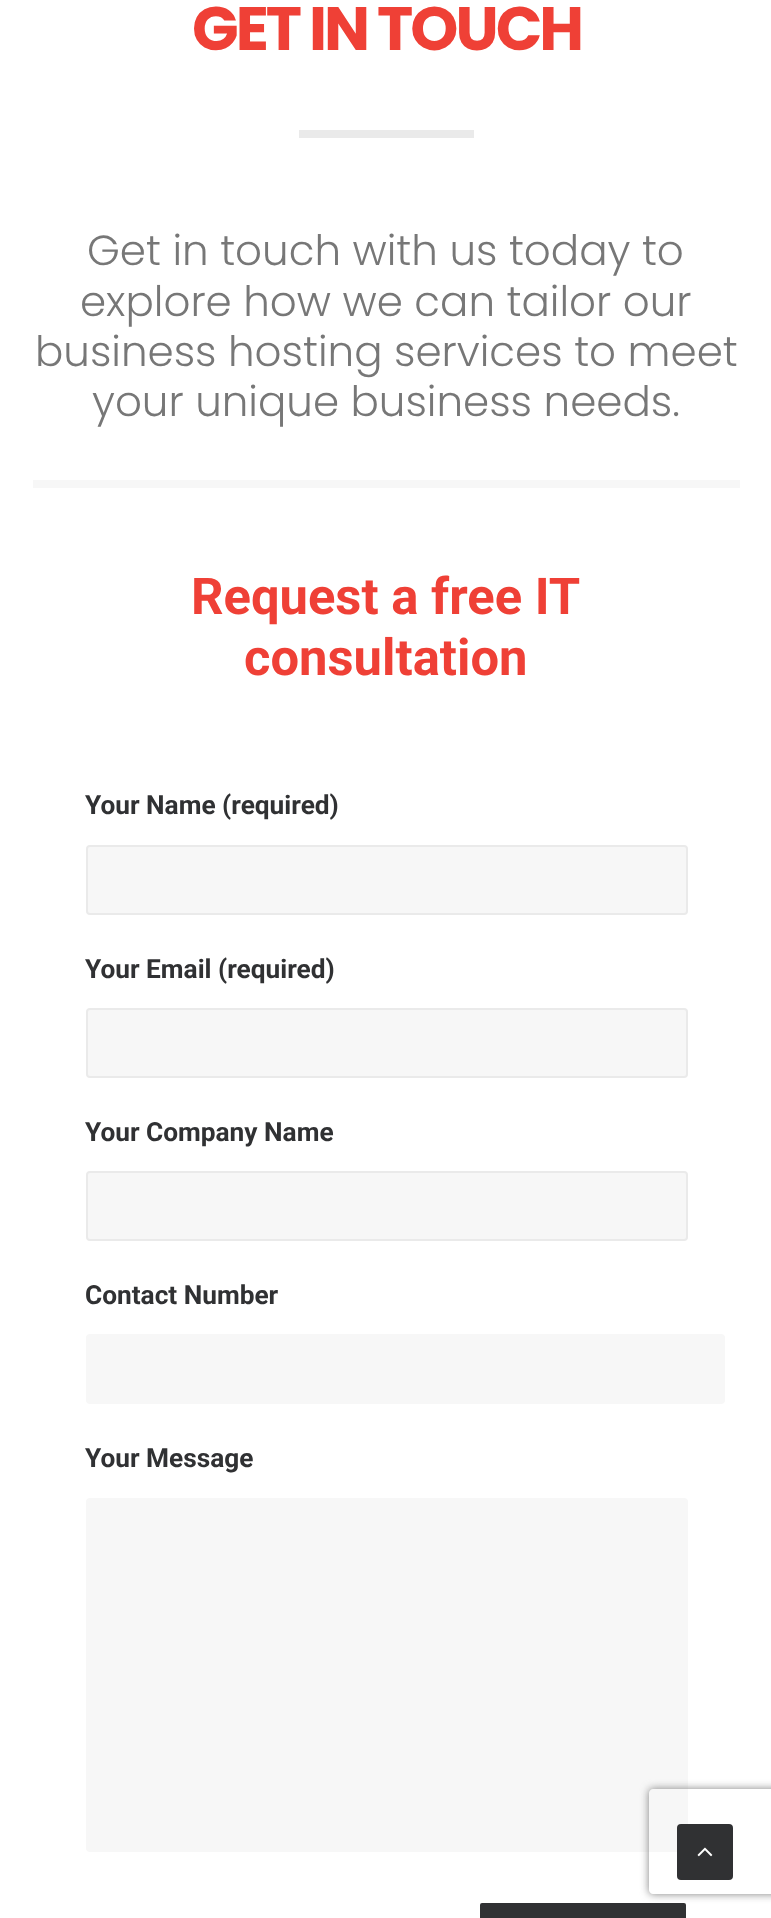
<svg xmlns="http://www.w3.org/2000/svg" width="771" height="1918" viewBox="0 0 771 1918">
  <style>
    .t1 { font: bold 61.25px Poppins; letter-spacing: -3px; fill: #ef4036; }
    .t2 { font: 300 42px Poppins; fill: #777; }
    .t3 { font: bold 50.75px Roboto; fill: #ef4036; }
    .t4 { font: bold 26.25px Roboto; fill: #303133; }
  </style>
  <defs>
    <clipPath id="clip1"><path d="M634 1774H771V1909H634ZM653 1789H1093C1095 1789 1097 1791 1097 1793V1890C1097 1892 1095 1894 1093 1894H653C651 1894 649 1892 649 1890V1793C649 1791 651 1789 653 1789Z" clip-rule="evenodd"/></clipPath>
  </defs>
  <rect width="100%" height="100%" fill="#fff"/>
  <text x="192" y="50" class="t1">GET IN TOUCH</text>
  <rect x="299" y="130" width="175" height="8" fill="#eaeaea"/>
  <text x="87" y="265" class="t2">Get in touch with us today to</text>
  <text x="80" y="316" class="t2">explore how we can tailor our</text>
  <text x="35" y="366" class="t2">business hosting services to meet</text>
  <text x="92" y="416" class="t2">your unique business needs.</text>
  <rect x="33" y="480" width="707" height="8" fill="#f7f7f7"/>
  <text x="191" y="614" class="t3">Request a free IT</text>
  <text x="244" y="675" class="t3">consultation</text>
  <text x="85" y="814" class="t4">Your Name (required)</text>
  <rect x="87" y="846" width="600" height="68" rx="3" fill="#f7f7f7" stroke="#eaeaea" stroke-width="2"/>
  <text x="85" y="978" class="t4">Your Email (required)</text>
  <rect x="87" y="1009" width="600" height="68" rx="3" fill="#f7f7f7" stroke="#eaeaea" stroke-width="2"/>
  <text x="85" y="1141" class="t4">Your Company Name</text>
  <rect x="87" y="1172" width="600" height="68" rx="3" fill="#f7f7f7" stroke="#eaeaea" stroke-width="2"/>
  <text x="85" y="1304" class="t4">Contact Number</text>
  <rect x="86" y="1334" width="639" height="70" rx="4" fill="#f7f7f7"/>
  <text x="85" y="1467" class="t4">Your Message</text>
  <rect x="86" y="1498" width="602" height="354" rx="4" fill="#f7f7f7"/>
  <rect x="479" y="1902" width="208" height="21" rx="3" fill="#303133" stroke="#fff" stroke-width="2"/>
  <g clip-path="url(#clip1)">
    <rect x="649" y="1789" width="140" height="105" rx="4" fill="#808080" filter="blur(4.5px)"/>
  </g>
  <rect x="678" y="1825" width="54" height="54" rx="3" fill="#303133" stroke="#303133" stroke-width="2"/>
  <image x="697" y="1847" width="16" height="10" href="images/1.png"/>
</svg>
